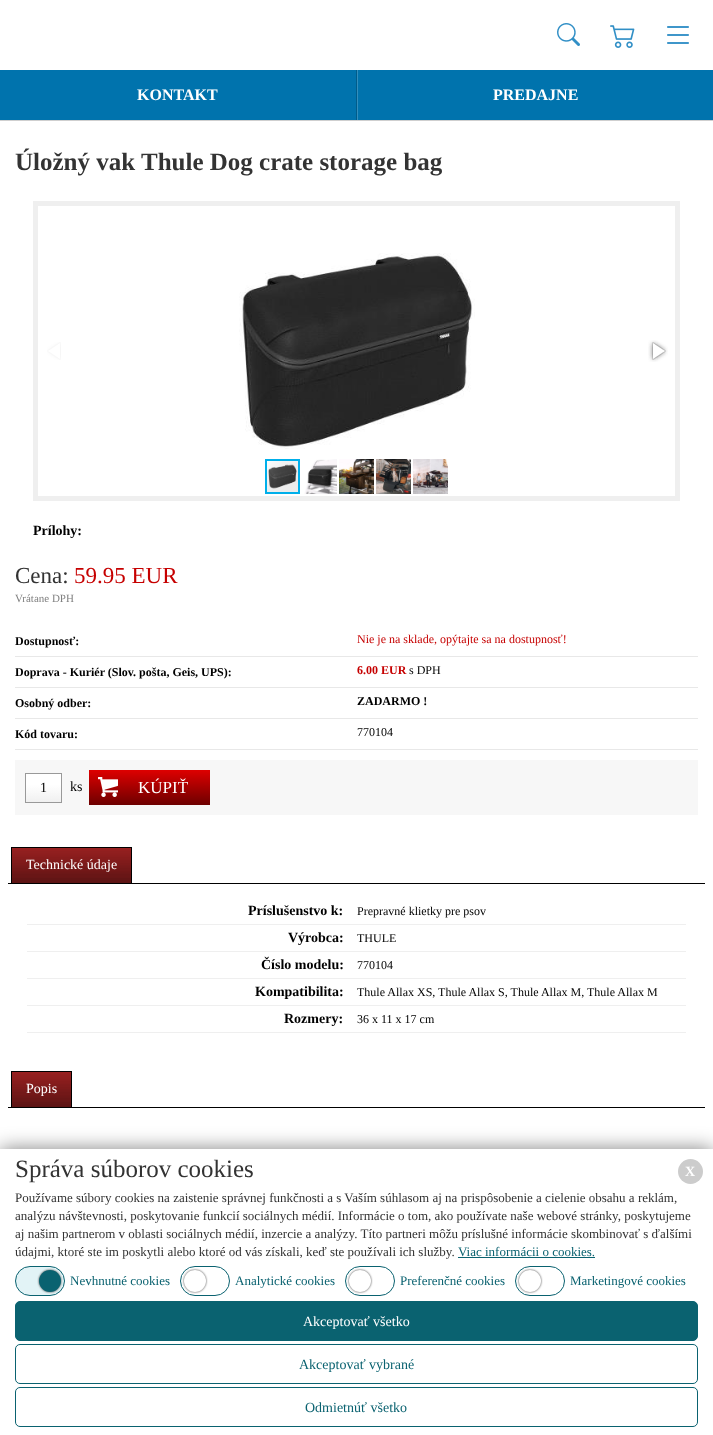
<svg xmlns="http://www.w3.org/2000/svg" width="713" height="1435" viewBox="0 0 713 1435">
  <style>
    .t1 { font: bold 16px Liberation Serif; fill: #fff; }
    .t2 { font: bold 25px Liberation Serif; fill: #333; }
    .t3 { font: bold 14px Liberation Serif; fill: #000; }
    .t4 { font: 23px Liberation Serif; fill: #333; }
    .t5 { font: 23px Liberation Serif; fill: #c60000; }
    .t6 { font: 11px Liberation Serif; fill: #808080; }
    .t7 { font: bold 12px Liberation Serif; fill: #000; }
    .t8 { font: 12px Liberation Serif; fill: #c60000; }
    .t9 { font: bold 12px Liberation Serif; fill: #c60000; }
    .t10 { font: 12px Liberation Serif; fill: #000; }
    .t11 { font: 14px Liberation Serif; fill: #000; }
    .t12 { font: 17px Liberation Serif; fill: #fff; }
    .t13 { font: 14px Liberation Serif; fill: #fff; }
    .t14 { font: 25px Liberation Serif; fill: #333; }
    .t15 { font: 13px Liberation Serif; fill: #333; }
    .t16 { font: 13px Liberation Serif; fill: #0a6270; }
    .t17 { font: bold 14px Liberation Serif; fill: #fff; }
    .t18 { font: 14px Liberation Serif; fill: #0a6270; }
  </style>
  <defs>
    <linearGradient id="g1" gradientUnits="userSpaceOnUse" x1="44" y1="774" x2="44" y2="802"><stop offset="0" stop-color="#fff"/><stop offset="0.38" stop-color="#fff"/><stop offset="1" stop-color="#f0f0f0"/></linearGradient>
  </defs>
  <rect width="100%" height="100%" fill="#fff"/>
  <rect x="0" y="120" width="713" height="1" fill="#cfcfcf"/>
  <image x="557" y="23" width="23" height="23" href="images/1.png"/>
  <image x="610" y="25" width="25" height="23" href="images/2.png"/>
  <image x="667" y="26" width="22" height="18" href="images/3.png"/>
  <rect x="0" y="70" width="356" height="50" fill="#0073ad"/>
  <rect x="356" y="70" width="1" height="50" fill="#005c8a"/>
  <text x="137" y="100" class="t1">KONTAKT</text>
  <rect x="358" y="70" width="355" height="50" fill="#0073ad"/>
  <rect x="357" y="70" width="1" height="50" fill="#338fbd"/>
  <text x="493" y="100" class="t1">PREDAJNE</text>
  <text x="15" y="170" class="t2">Úložný vak Thule Dog crate storage bag</text>
  <rect x="35.5" y="203.5" width="642" height="295" fill="none" stroke="#efefef" stroke-width="5"/>
  <image x="47" y="342" width="14" height="18" href="images/4.png"/>
  <image x="239" y="253" width="236" height="196" href="images/5.png"/>
  <image x="648" y="340" width="20" height="22" href="images/6.png"/>
  <image x="267" y="461" width="31" height="31" href="images/11.png"/>
  <rect x="266" y="460" width="33" height="33" fill="none" stroke="#00afea" stroke-width="2"/>
  <image x="302" y="459" width="35" height="35" href="images/7.png"/>
  <image x="339" y="459" width="35" height="35" href="images/8.png"/>
  <image x="376" y="459" width="35" height="35" href="images/9.png"/>
  <image x="413" y="459" width="35" height="35" href="images/10.png"/>
  <text x="33" y="535" class="t3">Prílohy:</text>
  <text x="15" y="583" class="t4">Cena:</text>
  <text x="74" y="583" class="t5">59.95 EUR</text>
  <text x="15" y="602" class="t6">Vrátane DPH</text>
  <rect x="15" y="656" width="683" height="1" fill="#e8e8e8"/>
  <text x="15" y="645" class="t7">Dostupnosť:</text>
  <text x="357" y="643" class="t8">Nie je na sklade, opýtajte sa na dostupnosť!</text>
  <rect x="15" y="687" width="683" height="1" fill="#e8e8e8"/>
  <text x="15" y="676" class="t7">Doprava - Kuriér (Slov. pošta, Geis, UPS):</text>
  <text x="357" y="674" class="t9">6.00 EUR</text>
  <text x="409" y="674" class="t10">s DPH</text>
  <rect x="15" y="718" width="683" height="1" fill="#e8e8e8"/>
  <text x="15" y="707" class="t7">Osobný odber:</text>
  <text x="357" y="705" class="t7">ZADARMO !</text>
  <rect x="15" y="749" width="683" height="1" fill="#e8e8e8"/>
  <text x="15" y="738" class="t7">Kód tovaru:</text>
  <text x="357" y="736" class="t10">770104</text>
  <rect x="15" y="760" width="683" height="55" fill="#f7f7f7"/>
  <rect x="26" y="774" width="35" height="28" fill="url(#g1)"/>
  <rect x="25.5" y="773.5" width="36" height="29" fill="none" stroke="#999"/>
  <text x="40" y="792" class="t11">1</text>
  <text x="70" y="791" class="t11">ks</text>
  <image x="89" y="770" width="121" height="35" href="images/12.png"/>
  <text x="138" y="793" class="t12">KÚPIŤ</text>
  <rect x="8" y="883" width="697" height="1" fill="#000"/>
  <image x="12" y="848" width="119" height="35" href="images/13.png"/>
  <rect x="11.5" y="847.5" width="120" height="36" fill="none" stroke="#000"/>
  <text x="26" y="869" class="t13">Technické údaje</text>
  <rect x="27" y="924" width="659" height="1" fill="#efefef"/>
  <text x="248" y="915" class="t3">Príslušenstvo k:</text>
  <text x="357" y="915" class="t10">Prepravné klietky pre psov</text>
  <rect x="27" y="951" width="659" height="1" fill="#efefef"/>
  <text x="288" y="942" class="t3">Výrobca:</text>
  <text x="357" y="942" class="t10">THULE</text>
  <rect x="27" y="978" width="659" height="1" fill="#efefef"/>
  <text x="261" y="969" class="t3">Číslo modelu:</text>
  <text x="357" y="969" class="t10">770104</text>
  <rect x="27" y="1005" width="659" height="1" fill="#efefef"/>
  <text x="255" y="996" class="t3">Kompatibilita:</text>
  <text x="357" y="996" class="t10">Thule Allax XS, Thule Allax S, Thule Allax M, Thule Allax M</text>
  <rect x="27" y="1032" width="659" height="1" fill="#efefef"/>
  <text x="284" y="1023" class="t3">Rozmery:</text>
  <text x="357" y="1023" class="t10">36 x 11 x 17 cm</text>
  <rect x="8" y="1107" width="697" height="1" fill="#000"/>
  <image x="12" y="1072" width="59" height="35" href="images/14.png"/>
  <rect x="11.5" y="1071.5" width="60" height="36" fill="none" stroke="#000"/>
  <text x="26" y="1093" class="t13">Popis</text>
  <rect x="0" y="1149" width="713" height="286" fill="#00000080" filter="blur(10px)"/>
  <rect x="0" y="1149" width="713" height="286" fill="#fff"/>
  <text x="15" y="1177" class="t14">Správa súborov cookies</text>
  <text x="15" y="1202" class="t15">Používame súbory cookies na zaistenie správnej funkčnosti a s Vaším súhlasom aj na prispôsobenie a cielenie obsahu a reklám,</text>
  <text x="15" y="1220" class="t15">analýzu návštevnosti, poskytovanie funkcií sociálnych médií. Informácie o tom, ako používate naše webové stránky, poskytujeme</text>
  <text x="15" y="1238" class="t15">aj našim partnerom v oblasti sociálnych médií, inzercie a analýzy. Títo partneri môžu príslušné informácie skombinovať s ďalšími</text>
  <text x="15" y="1256" class="t15">údajmi, ktoré ste im poskytli alebo ktoré od vás získali, keď ste používali ich služby.</text>
  <text x="458" y="1256" class="t16">Viac informácii o cookies.</text>
  <rect x="458" y="1257" width="137" height="1" fill="#0a6270"/>
  <rect x="15.5" y="1266.5" width="49" height="29" rx="14.5" fill="#e2f3f6" stroke="#0a6270"/>
  <rect x="39" y="1270" width="22" height="22" rx="11" fill="#000000bd" filter="blur(1px)"/>
  <circle cx="50" cy="1281" r="11" fill="#0a6270"/>
  <text x="70" y="1285" class="t16">Nevhnutné cookies</text>
  <rect x="180.5" y="1266.5" width="49" height="29" rx="14.5" fill="none" stroke="#0a6270"/>
  <rect x="184" y="1270" width="22" height="22" rx="11" fill="#000000bd" filter="blur(1px)"/>
  <circle cx="195" cy="1281" r="11" fill="#fff"/>
  <text x="235" y="1285" class="t16">Analytické cookies</text>
  <rect x="345.5" y="1266.5" width="49" height="29" rx="14.5" fill="none" stroke="#0a6270"/>
  <rect x="349" y="1270" width="22" height="22" rx="11" fill="#000000bd" filter="blur(1px)"/>
  <circle cx="360" cy="1281" r="11" fill="#fff"/>
  <text x="400" y="1285" class="t16">Preferenčné cookies</text>
  <rect x="515.5" y="1266.5" width="49" height="29" rx="14.5" fill="none" stroke="#0a6270"/>
  <rect x="519" y="1270" width="22" height="22" rx="11" fill="#000000bd" filter="blur(1px)"/>
  <circle cx="530" cy="1281" r="11" fill="#fff"/>
  <text x="570" y="1285" class="t16">Marketingové cookies</text>
  <circle cx="690.5" cy="1171.5" r="12.5" fill="#ccc"/>
  <text x="685" y="1176" class="t17">X</text>
  <rect x="15.5" y="1301.5" width="682" height="39" rx="4.5" fill="#0a6270" stroke="#0a6270"/>
  <text x="303" y="1326" class="t13">Akceptovať všetko</text>
  <rect x="15.5" y="1344.5" width="682" height="39" rx="4.5" fill="none" stroke="#0a6270"/>
  <text x="299" y="1369" class="t18">Akceptovať vybrané</text>
  <rect x="15.5" y="1387.5" width="682" height="39" rx="4.5" fill="none" stroke="#0a6270"/>
  <text x="305" y="1412" class="t18">Odmietnúť všetko</text>
</svg>
